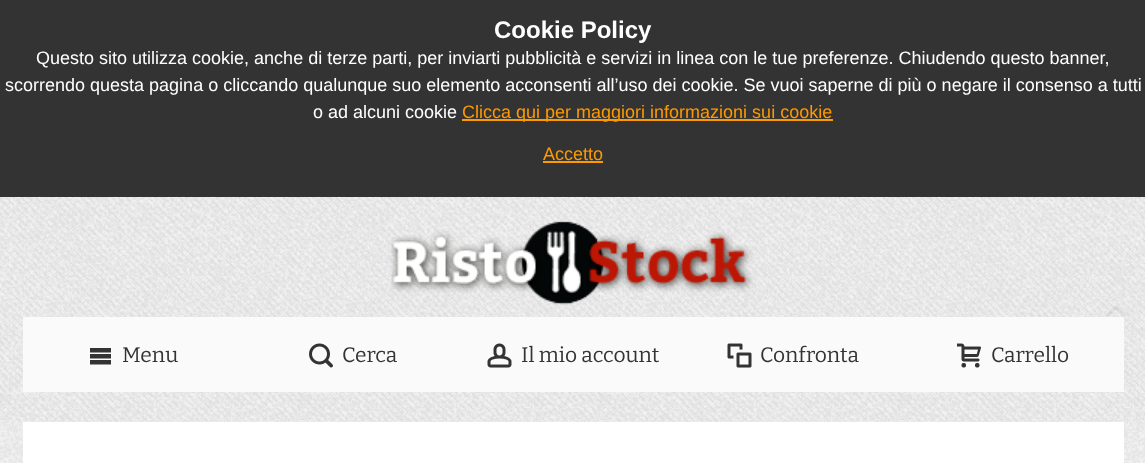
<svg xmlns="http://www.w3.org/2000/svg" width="1145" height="463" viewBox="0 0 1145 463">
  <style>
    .t1 { font: bold 24px Liberation Sans; fill: #fff; }
    .t2 { font: 18px Liberation Sans; fill: #fff; }
    .t3 { font: 18px Liberation Sans; fill: #f90; }
    .t4 { font: 100 21px Bitter; fill: #333; }
  </style>
  <rect width="100%" height="100%" fill="#f2f2f2"/>
  <rect x="0" y="0" width="1145" height="197" fill="#333"/>
  <text x="494" y="38" class="t1">Cookie Policy</text>
  <text x="36" y="64" class="t2">Questo sito utilizza cookie, anche di terze parti, per inviarti pubblicità e servizi in linea con le tue preferenze. Chiudendo questo banner,</text>
  <text x="5" y="91" class="t2">scorrendo questa pagina o cliccando qualunque suo elemento acconsenti all’uso dei cookie. Se vuoi saperne di più o negare il consenso a tutti</text>
  <text x="313" y="118" class="t2">o ad alcuni cookie</text>
  <rect x="462" y="119" width="371" height="2" fill="#f90"/>
  <text x="462" y="118" class="t3">Clicca qui per maggiori informazioni sui cookie</text>
  <text x="543" y="160" class="t3">Accetto</text>
  <rect x="543" y="161" width="60" height="2" fill="#f90"/>
  <image x="0" y="196" width="1145" height="267" href="images/1.png"/>
  <image x="0" y="197" width="1145" height="224" href="images/3.png"/>
  <image x="1106" y="306" width="20" height="11" href="images/2.png"/>
  <image x="391" y="221" width="362" height="84" href="images/4.png"/>
  <rect x="23" y="317" width="1101" height="75" fill="#fafafa"/>
  <image x="90" y="348" width="21" height="17" href="images/5.png"/>
  <text x="122" y="362" class="t4">Menu</text>
  <image x="309" y="343" width="24" height="25" href="images/6.png"/>
  <text x="342" y="362" class="t4">Cerca</text>
  <image x="487" y="343" width="25" height="25" href="images/7.png"/>
  <text x="521" y="362" class="t4">Il mio account</text>
  <image x="727" y="343" width="25" height="25" href="images/8.png"/>
  <text x="760" y="362" class="t4">Confronta</text>
  <image x="957" y="343" width="24" height="25" href="images/9.png"/>
  <text x="991" y="362" class="t4">Carrello</text>
  <rect x="23" y="422" width="1101" height="41" fill="#fff"/>
</svg>
